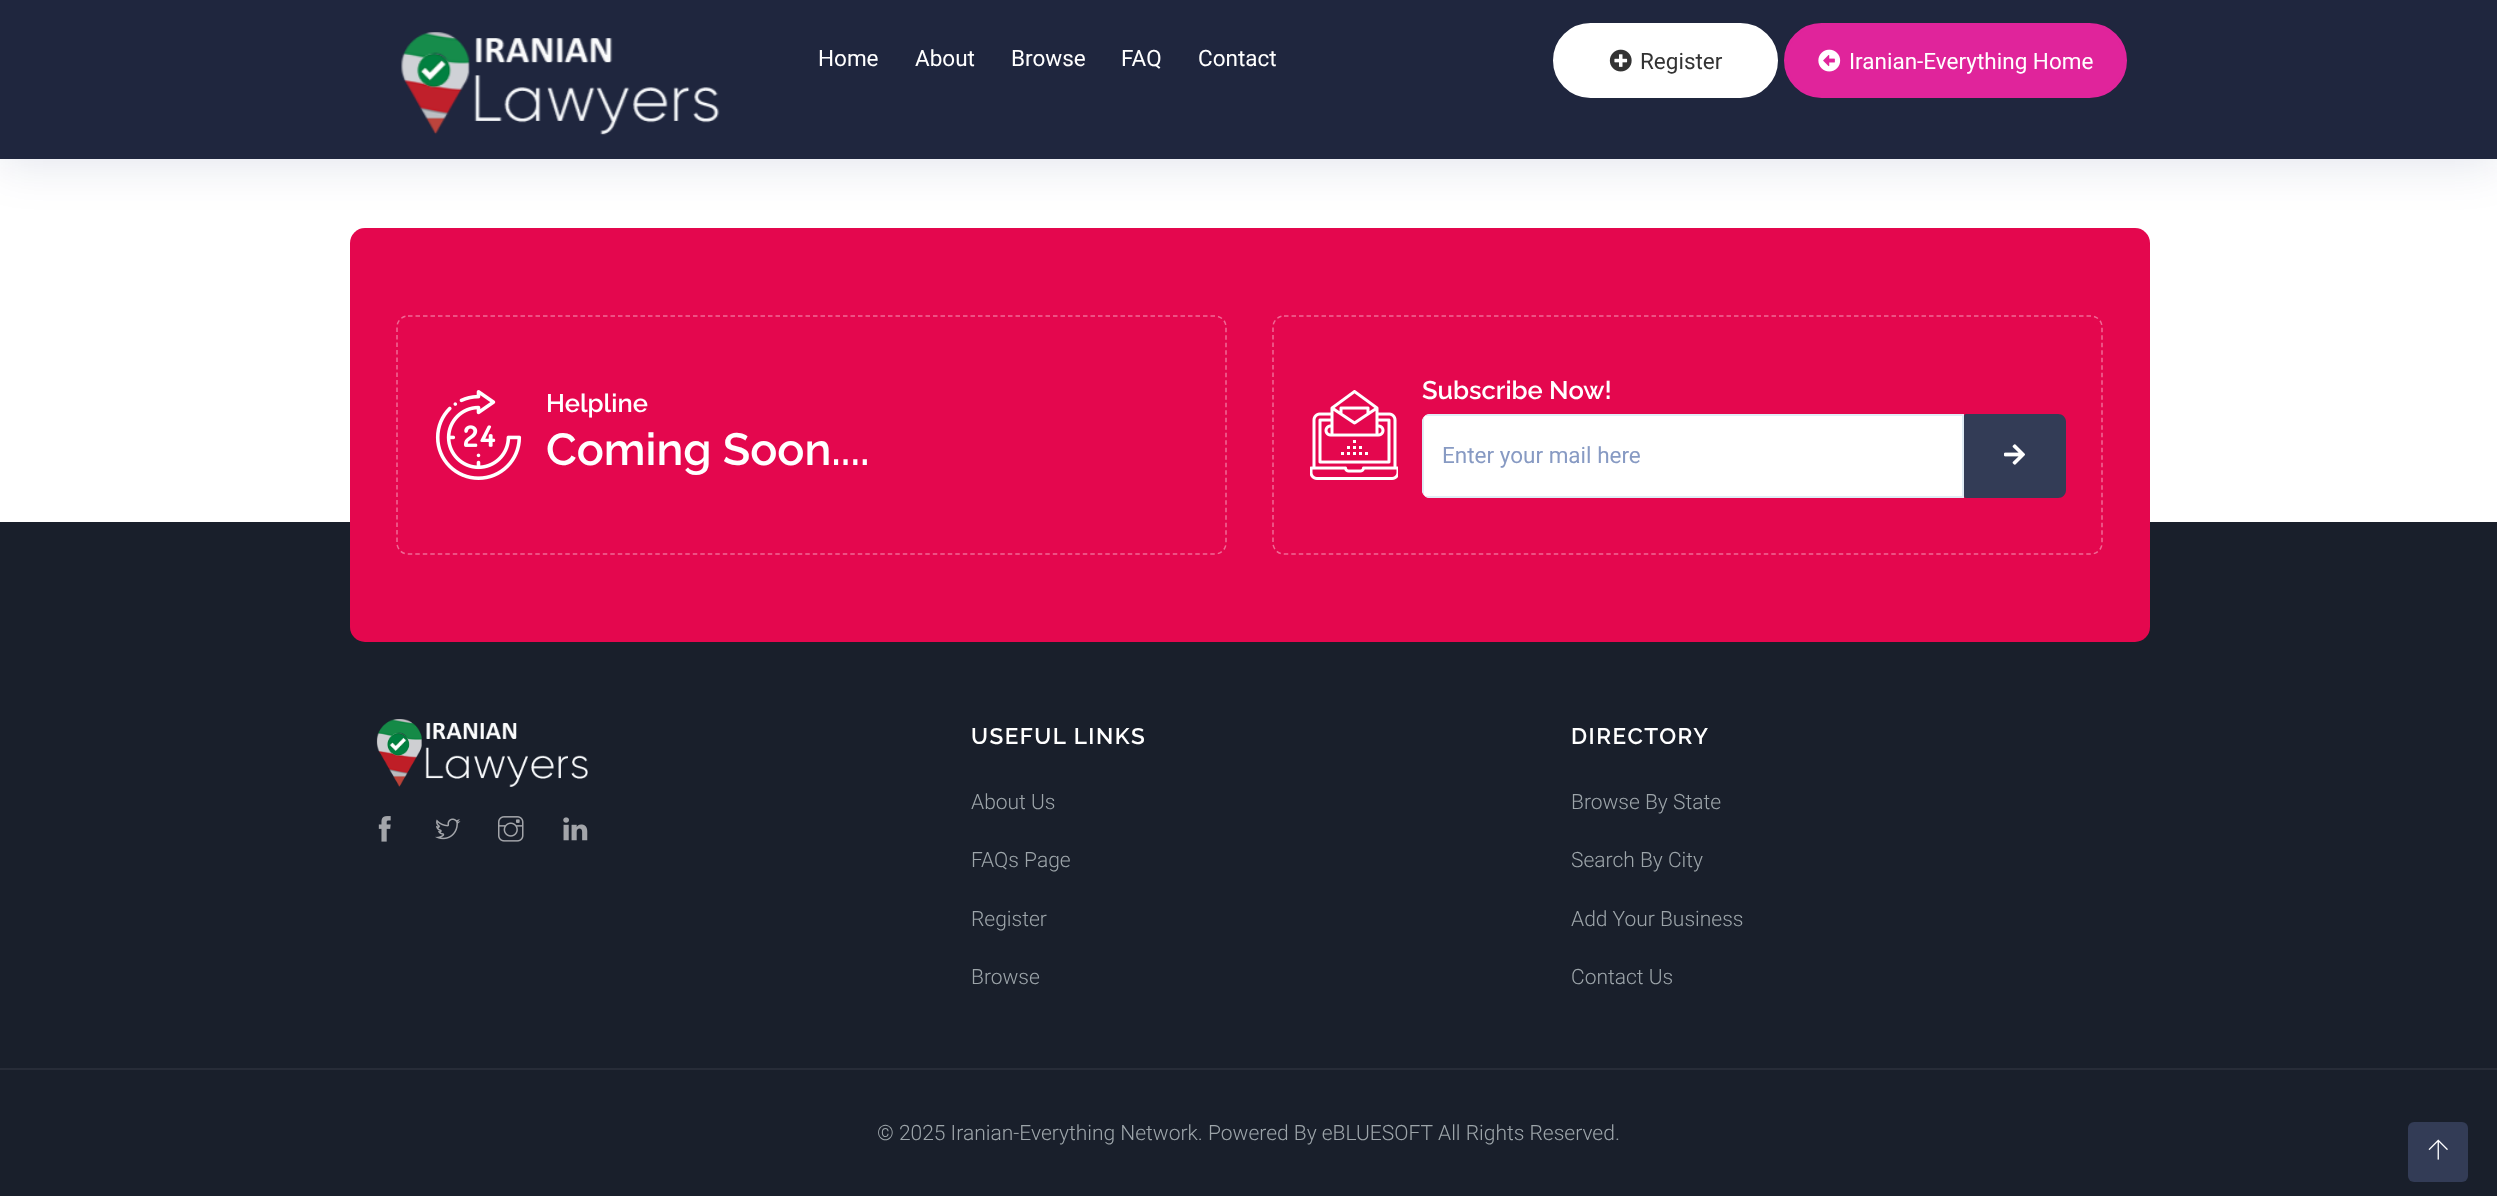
<svg xmlns="http://www.w3.org/2000/svg" width="2497" height="1196" viewBox="0 0 2497 1196">
  <style>
    .t1 { font: 22.5px Roboto; fill: #fff; }
    .t2 { font: 22.5px Roboto; fill: #333; }
    .t3 { font: 600 25.5px Raleway; fill: #fff; }
    .t4 { font: 600 45px Raleway; fill: #fff; }
    .t5 { font: 22.5px Roboto; fill: #879ac3; }
    .t6 { font: 600 22.5px Raleway; letter-spacing: 1.5px; fill: #fff; }
    .t7 { font: 300 21px Roboto; fill: #9da5aa; }
  </style>
  <rect width="100%" height="100%" fill="#fff"/>
  <rect x="0" y="522" width="2497" height="674" fill="#191f2b"/>
  <rect x="350" y="228" width="1800" height="414" rx="15" fill="#e4074e"/>
  <rect x="0" y="8" width="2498" height="159" fill="#0016541a" filter="blur(22.5px)"/>
  <rect x="0" y="0" width="2497" height="159" fill="#1f263e"/>
  <image x="401" y="32" width="319" height="103" href="images/1.png"/>
  <text x="818" y="66" class="t1">Home</text>
  <text x="915" y="66" class="t1">About</text>
  <text x="1011" y="66" class="t1">Browse</text>
  <text x="1121" y="66" class="t1">FAQ</text>
  <text x="1198" y="66" class="t1">Contact</text>
  <rect x="1554.5" y="24.5" width="222" height="72" rx="36" fill="#fff" stroke="#fff" stroke-width="3"/>
  <image x="1609" y="49" width="23" height="23" href="images/2.png"/>
  <text x="1640" y="69" class="t2">Register</text>
  <rect x="1785.5" y="24.5" width="340" height="72" rx="36" fill="#e0249b" stroke="#e0249b" stroke-width="3"/>
  <image x="1818" y="49" width="23" height="23" href="images/3.png"/>
  <text x="1849" y="69" class="t1">Iranian-Everything Home</text>
  <path d="M408 316H1215C1221 316 1226 321 1226 327V543C1226 549 1221 554 1215 554H408C402 554 397 549 397 543V327C397 321 402 316 408 316Z" fill="none" stroke="#ef6a95" stroke-width="1.5" stroke-dasharray="4.5 3"/>
  <image x="435" y="390" width="87" height="90" href="images/4.png"/>
  <text x="546" y="412" class="t3">Helpline</text>
  <text x="546" y="465" class="t4">Coming Soon....</text>
  <path d="M1284 316H2091C2097 316 2102 321 2102 327V543C2102 549 2097 554 2091 554H1284C1278 554 1273 549 1273 543V327C1273 321 1278 316 1284 316Z" fill="none" stroke="#ef6a95" stroke-width="1.5" stroke-dasharray="4.5 3"/>
  <image x="1310" y="390" width="88" height="90" href="images/5.png"/>
  <text x="1422" y="399" class="t3">Subscribe Now!</text>
  <path d="M1430 414H1964V498H1430C1425.5 498 1422 494.5 1422 490V422C1422 417.5 1425.5 414 1430 414Z" fill="#fff"/>
  <path d="M1422 422V490C1422 492 1423 494 1424 495V417C1423 418 1422 420 1422 422ZM1430 414C1428 414 1426 415 1425 416H1962V496H1425C1426 497 1428 498 1430 498H1964V414Z" fill="#e0ecf5" fill-rule="evenodd"/>
  <text x="1442" y="463" class="t5">Enter your mail here</text>
  <path d="M1966 414H2058C2062.5 414 2066 417.5 2066 422V490C2066 494.5 2062.5 498 2058 498H1966C1965 498 1964 497 1964 496V416C1964 415 1965 414 1966 414Z" fill="#333c56"/>
  <image x="2004" y="444" width="21" height="21" href="images/6.png"/>
  <image x="376" y="719" width="212" height="68" href="images/7.png"/>
  <image x="378" y="816" width="13" height="26" href="images/8.png"/>
  <image x="435" y="818" width="26" height="22" href="images/9.png"/>
  <image x="498" y="816" width="26" height="26" href="images/10.png"/>
  <image x="563" y="817" width="25" height="24" href="images/11.png"/>
  <text x="971" y="744" class="t6">USEFUL LINKS</text>
  <text x="971" y="809" class="t7">About Us</text>
  <text x="971" y="867" class="t7">FAQs Page</text>
  <text x="971" y="926" class="t7">Register</text>
  <text x="971" y="984" class="t7">Browse</text>
  <text x="1571" y="744" class="t6">DIRECTORY</text>
  <text x="1571" y="809" class="t7">Browse By State</text>
  <text x="1571" y="867" class="t7">Search By City</text>
  <text x="1571" y="926" class="t7">Add Your Business</text>
  <text x="1571" y="984" class="t7">Contact Us</text>
  <rect x="0" y="1068" width="2497" height="2" fill="#272c38"/>
  <text x="877" y="1140" class="t7">© 2025 Iranian-Everything Network. Powered By eBLUESOFT</text>
  <text x="1438" y="1140" class="t7">All Rights Reserved.</text>
  <rect x="2408" y="1122" width="60" height="60" rx="6" fill="#333c56"/>
  <image x="2428" y="1139" width="20" height="21" href="images/12.png"/>
</svg>
